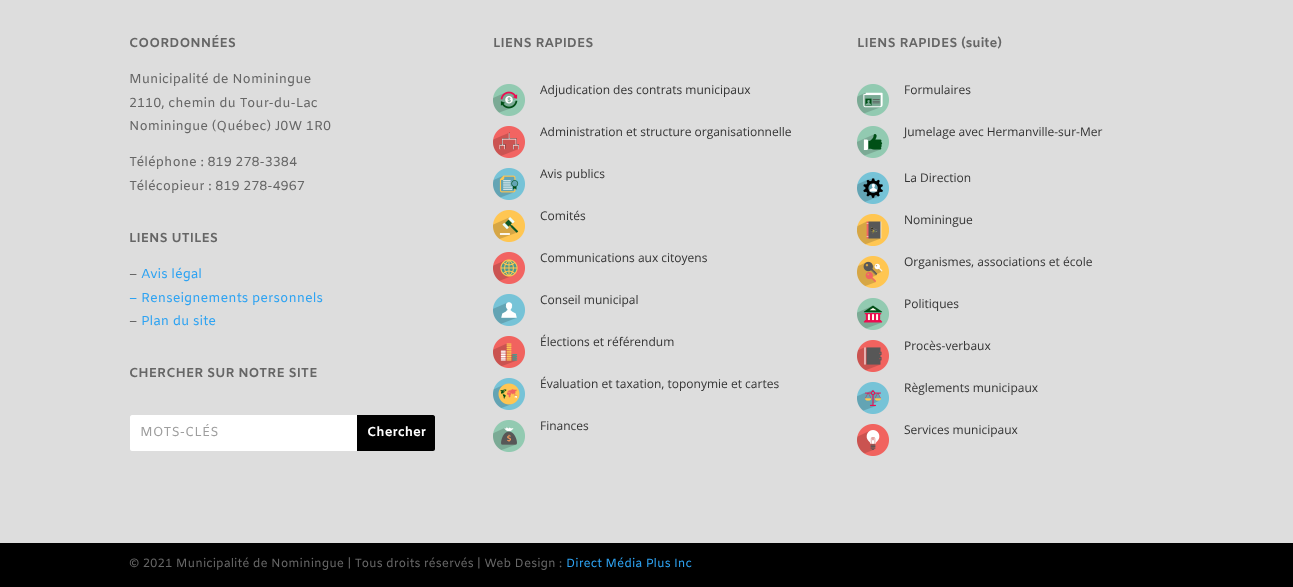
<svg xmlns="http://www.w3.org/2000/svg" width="1293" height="587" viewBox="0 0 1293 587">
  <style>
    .t1 { font: bold 13px Amiko; fill: #666; }
    .t2 { font: 13px Amiko; fill: #666; }
    .t3 { font: 13px Amiko; fill: #2ea3f2; }
    .t4 { font: 13px Amiko; fill: #9e9e9e; }
    .t5 { font: bold 13px Amiko; fill: #fff; }
    .t6 { font: 12px Open Sans; fill: #333; }
    .t7 { font: 12px Amiko; fill: #666; }
    .t8 { font: 12px Amiko; fill: #2ea3f2; }
  </style>
  <rect width="100%" height="100%" fill="#ddd"/>
  <text x="129" y="47" class="t1">COORDONNÉES</text>
  <text x="129" y="83" class="t2">Municipalité de Nominingue</text>
  <text x="129" y="107" class="t2">2110, chemin du Tour-du-Lac</text>
  <text x="129" y="130" class="t2">Nominingue (Québec) J0W 1R0</text>
  <text x="129" y="166" class="t2">Téléphone : 819 278-3384</text>
  <text x="129" y="190" class="t2">Télécopieur : 819 278-4967</text>
  <text x="129" y="242" class="t1">LIENS UTILES</text>
  <text x="129" y="278" class="t2">–</text>
  <text x="141" y="278" class="t3">Avis légal</text>
  <text x="129" y="302" class="t3">– Renseignements personnels</text>
  <text x="129" y="325" class="t2">–</text>
  <text x="141" y="325" class="t3">Plan du site</text>
  <text x="129" y="377" class="t1">CHERCHER SUR NOTRE SITE</text>
  <path d="M132 415H357V451H132C131 451 130 450 130 449V417C130 416 131 415 132 415Z" fill="#fff"/>
  <text x="140" y="436" class="t4">MOTS-CLÉS</text>
  <path d="M357 415H433C434 415 435 416 435 417V449C435 450 434 451 433 451H357Z" fill="#000"/>
  <text x="367" y="436" class="t5">Chercher</text>
  <text x="493" y="47" class="t1">LIENS RAPIDES</text>
  <image x="493" y="84" width="32" height="32" href="images/1.png"/>
  <text x="540" y="94" class="t6">Adjudication des contrats municipaux</text>
  <image x="493" y="126" width="32" height="32" href="images/2.png"/>
  <text x="540" y="136" class="t6">Administration et structure organisationnelle</text>
  <image x="493" y="168" width="32" height="32" href="images/3.png"/>
  <text x="540" y="178" class="t6">Avis publics</text>
  <image x="493" y="210" width="32" height="32" href="images/4.png"/>
  <text x="540" y="220" class="t6">Comités</text>
  <image x="493" y="252" width="32" height="32" href="images/5.png"/>
  <text x="540" y="262" class="t6">Communications aux citoyens</text>
  <image x="493" y="294" width="32" height="32" href="images/6.png"/>
  <text x="540" y="304" class="t6">Conseil municipal</text>
  <image x="493" y="336" width="32" height="32" href="images/7.png"/>
  <text x="540" y="346" class="t6">Élections et référendum</text>
  <image x="493" y="378" width="32" height="32" href="images/8.png"/>
  <text x="540" y="388" class="t6">Évaluation et taxation, toponymie et cartes</text>
  <image x="493" y="420" width="32" height="32" href="images/9.png"/>
  <text x="540" y="430" class="t6">Finances</text>
  <text x="857" y="47" class="t1">LIENS RAPIDES (suite)</text>
  <image x="857" y="84" width="32" height="32" href="images/10.png"/>
  <text x="904" y="94" class="t6">Formulaires</text>
  <image x="857" y="126" width="32" height="32" href="images/11.png"/>
  <text x="904" y="136" class="t6">Jumelage avec Hermanville-sur-Mer</text>
  <image x="857" y="172" width="32" height="32" href="images/12.png"/>
  <text x="904" y="182" class="t6">La Direction</text>
  <image x="857" y="214" width="32" height="32" href="images/13.png"/>
  <text x="904" y="224" class="t6">Nominingue</text>
  <image x="857" y="256" width="32" height="32" href="images/14.png"/>
  <text x="904" y="266" class="t6">Organismes, associations et école</text>
  <image x="857" y="298" width="32" height="32" href="images/15.png"/>
  <text x="904" y="308" class="t6">Politiques</text>
  <image x="857" y="340" width="32" height="32" href="images/16.png"/>
  <text x="904" y="350" class="t6">Procès-verbaux</text>
  <image x="857" y="382" width="32" height="32" href="images/17.png"/>
  <text x="904" y="392" class="t6">Règlements municipaux</text>
  <image x="857" y="424" width="32" height="32" href="images/18.png"/>
  <text x="904" y="434" class="t6">Services municipaux</text>
  <rect x="0" y="543" width="1293" height="44" fill="#000"/>
  <text x="129" y="567" class="t7">© 2021 Municipalité de Nominingue | Tous droits réservés | Web Design :</text>
  <text x="566" y="567" class="t8">Direct Média Plus Inc</text>
</svg>
